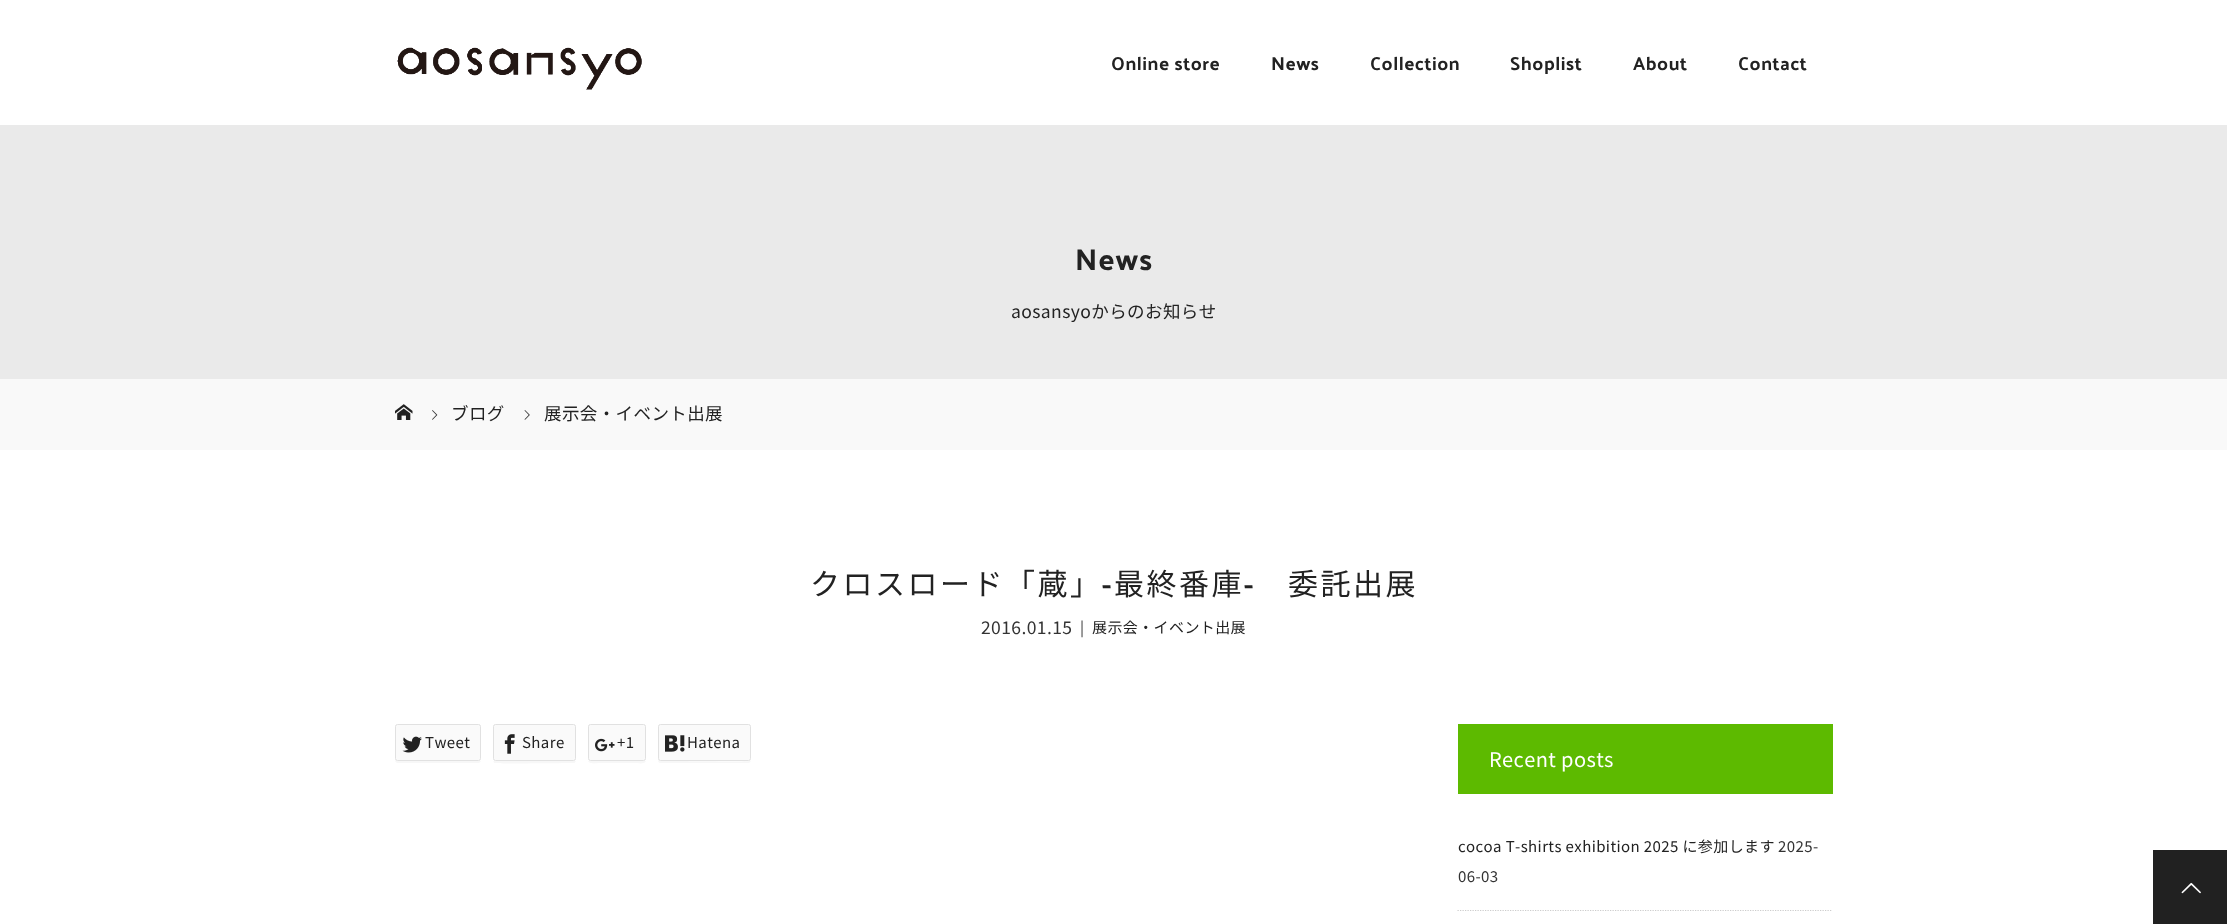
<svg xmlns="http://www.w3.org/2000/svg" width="2227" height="924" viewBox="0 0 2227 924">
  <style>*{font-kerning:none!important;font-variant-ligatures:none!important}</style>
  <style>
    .t1 { font: 18.75px Palanquin Dark; letter-spacing: 0.5px; fill: #222; }
    .t2 { font: 30px Palanquin Dark; letter-spacing: 1px; fill: #222; }
    .t3 { font: 100 17.5px Noto Sans JP; letter-spacing: 0.4px; fill: #222; }
    .t4 { font: 100 30px Noto Sans JP; letter-spacing: 2.5px; fill: #222; }
    .t5 { font: 30px Palanquin Dark; letter-spacing: 2.5px; fill: #222; }
    .t6 { font: 100 17.5px Noto Sans JP; letter-spacing: 0.4px; fill: #333; }
    .t7 { font: 100 15px Noto Sans JP; letter-spacing: 0.4px; fill: #333; }
    .t8 { font: 100 15px Noto Sans JP; letter-spacing: 0.4px; fill: #222; }
    .t9 { font: 100 20px Noto Sans JP; letter-spacing: 0.4px; fill: #fff; }
  </style>
  <rect width="100%" height="100%" fill="#fff"/>
  <image x="397" y="47" width="245" height="43" href="images/1.png"/>
  <text x="1111" y="70" class="t1">Online store</text>
  <text x="1271" y="70" class="t1">News</text>
  <text x="1370" y="70" class="t1">Collection</text>
  <text x="1510" y="70" class="t1">Shoplist</text>
  <text x="1633" y="70" class="t1">About</text>
  <text x="1738" y="70" class="t1">Contact</text>
  <rect x="0" y="125" width="2227" height="254" fill="#eaeaea"/>
  <text x="1075" y="270" class="t2">News</text>
  <text x="1011" y="318" class="t3">aosansyoからのお知らせ</text>
  <rect x="0" y="379" width="2227" height="71" fill="#f9f9f9"/>
  <image x="395" y="404" width="18" height="16" href="images/2.png"/>
  <image x="432" y="410" width="6" height="10" href="images/3.png"/>
  <text x="451" y="420" class="t3">ブログ</text>
  <image x="524" y="410" width="6" height="10" href="images/4.png"/>
  <text x="544" y="420" class="t3">展示会・イベント出展</text>
  <text x="810" y="595" class="t4">クロスロード「蔵」</text>
  <text x="1102" y="595" class="t5">-</text>
  <text x="1114" y="595" class="t4">最終番庫</text>
  <text x="1244" y="595" class="t5">-</text>
  <text x="1288" y="595" class="t4">委託出展</text>
  <text x="981" y="634" class="t6">2016.01.15</text>
  <text x="1080" y="633" class="t7">|</text>
  <text x="1092" y="633" class="t8">展示会・イベント出展</text>
  <path d="M395 759V760C395 762 396 763 398 763H478C480 763 481 762 481 760C481 761 480 761 479 761H398C396 761 395 760 395 759Z" fill="#f7f7f7"/>
  <rect x="395.5" y="724.5" width="85" height="36" rx="2" fill="#fafafa" stroke="#e1e1e1"/>
  <image x="402" y="736" width="20" height="17" href="images/5.png"/>
  <text x="425" y="748" class="t8">Tweet</text>
  <path d="M493 760L494 763C496 764 566 763 574 763C575 763 576 761 576 760C576 761 575 761 574 761H495C494 761 493 761 493 760Z" fill="#f7f7f7"/>
  <rect x="493.5" y="724.5" width="82" height="36" rx="2" fill="#fafafa" stroke="#e1e1e1"/>
  <image x="504" y="734" width="11" height="20" href="images/6.png"/>
  <text x="522" y="748" class="t8">Share</text>
  <path d="M588 760C588 765 598 763 599 763H635C638 763 646 765 646 760C646 761 645 761 644 761H590C589 761 588 761 588 760Z" fill="#f7f7f7"/>
  <rect x="588.5" y="724.5" width="57" height="36" rx="2" fill="#fafafa" stroke="#e1e1e1"/>
  <image x="595" y="738" width="20" height="14" href="images/7.png"/>
  <text x="617" y="748" class="t8">+1</text>
  <path d="M658 760C658 762 659 763 660 763H748C750 763 751 761 751 760L750 761C748 762 683 761 675 761H660Z" fill="#f7f7f7"/>
  <rect x="658.5" y="724.5" width="92" height="36" rx="2" fill="#fafafa" stroke="#e1e1e1"/>
  <image x="665" y="735" width="20" height="17" href="images/8.png"/>
  <text x="687" y="748" class="t8">Hatena</text>
  <rect x="1458" y="724" width="375" height="70" fill="#5dba00"/>
  <text x="1489" y="767" class="t9">Recent posts</text>
  <path d="M1457.5 910.5H1832.5" fill="none" stroke="#ccc" stroke-width="1.2" stroke-dasharray="1.25 1.25"/>
  <text x="1458" y="852" class="t8">cocoa T-shirts exhibition 2025 に参加します</text>
  <text x="1778" y="852" class="t7">2025-</text>
  <text x="1458" y="882" class="t7">06-03</text>
  <rect x="2153" y="850" width="74" height="74" fill="#212121"/>
  <image x="2181" y="882" width="20" height="12" href="images/9.png"/>
</svg>
